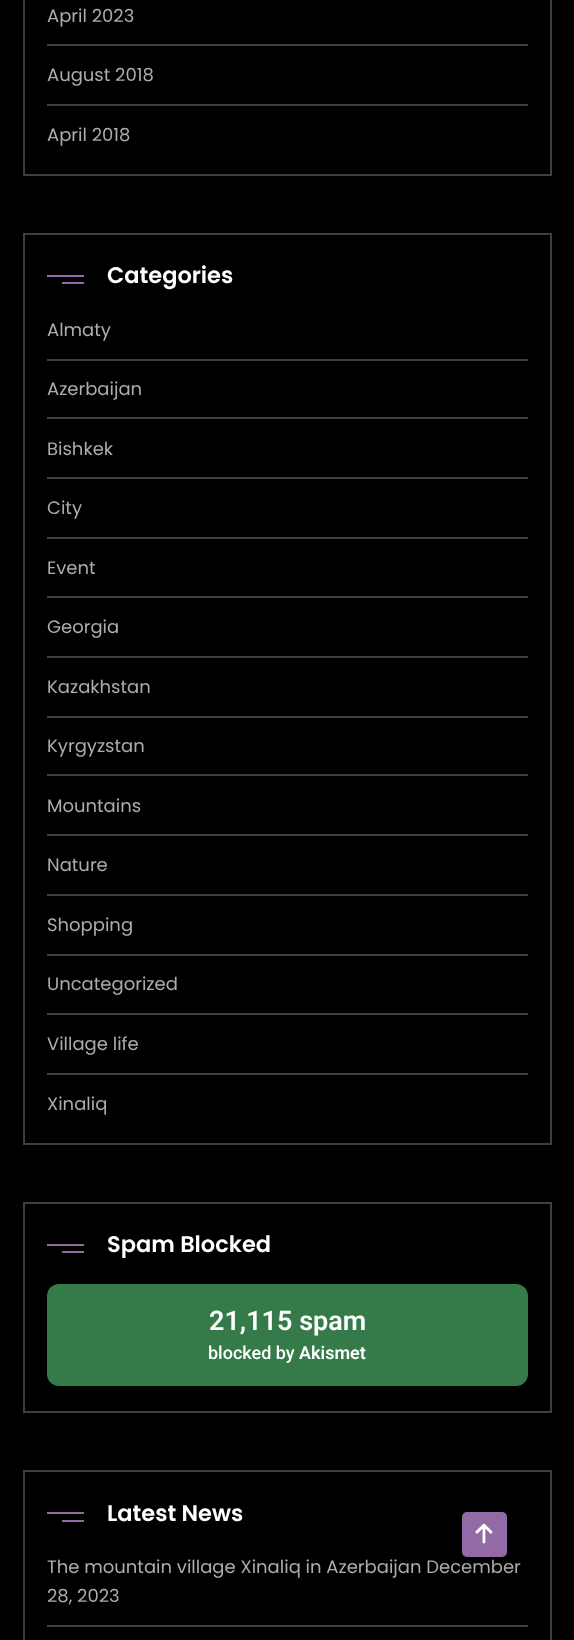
<svg xmlns="http://www.w3.org/2000/svg" width="574" height="1640" viewBox="0 0 574 1640">
  <style>
    .t1 { font: 18px Poppins; fill: #acacac; }
    .t2 { font: 600 22.5px Poppins; fill: #fff; }
    .t3 { font: 600 27px Roboto; fill: #fff; }
    .t4 { font: 500 18px Roboto; fill: #fff; }
    .t5 { font: 600 18px Roboto; fill: #fff; }
  </style>
  <rect width="100%" height="100%" fill="#000"/>
  <rect x="24" y="-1" width="527" height="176" fill="none" stroke="#3f3f3f" stroke-width="2"/>
  <rect x="47" y="44" width="481" height="2" fill="#3f3f3f"/>
  <text x="47" y="22" class="t1">April 2023</text>
  <rect x="47" y="104" width="481" height="2" fill="#3f3f3f"/>
  <text x="47" y="81" class="t1">August 2018</text>
  <text x="47" y="141" class="t1">April 2018</text>
  <rect x="24" y="234" width="527" height="910" fill="none" stroke="#3f3f3f" stroke-width="2"/>
  <rect x="47" y="275" width="37" height="2" fill="#926aa6"/>
  <text x="107" y="283" class="t2">Categories</text>
  <rect x="62" y="282" width="22" height="2" fill="#926aa6"/>
  <rect x="47" y="359" width="481" height="2" fill="#3f3f3f"/>
  <text x="47" y="336" class="t1">Almaty</text>
  <rect x="47" y="417" width="481" height="2" fill="#3f3f3f"/>
  <text x="47" y="395" class="t1">Azerbaijan</text>
  <rect x="47" y="477" width="481" height="2" fill="#3f3f3f"/>
  <text x="47" y="455" class="t1">Bishkek</text>
  <rect x="47" y="537" width="481" height="2" fill="#3f3f3f"/>
  <text x="47" y="514" class="t1">City</text>
  <rect x="47" y="596" width="481" height="2" fill="#3f3f3f"/>
  <text x="47" y="574" class="t1">Event</text>
  <rect x="47" y="656" width="481" height="2" fill="#3f3f3f"/>
  <text x="47" y="633" class="t1">Georgia</text>
  <rect x="47" y="716" width="481" height="2" fill="#3f3f3f"/>
  <text x="47" y="693" class="t1">Kazakhstan</text>
  <rect x="47" y="774" width="481" height="2" fill="#3f3f3f"/>
  <text x="47" y="752" class="t1">Kyrgyzstan</text>
  <rect x="47" y="834" width="481" height="2" fill="#3f3f3f"/>
  <text x="47" y="812" class="t1">Mountains</text>
  <rect x="47" y="894" width="481" height="2" fill="#3f3f3f"/>
  <text x="47" y="871" class="t1">Nature</text>
  <rect x="47" y="954" width="481" height="2" fill="#3f3f3f"/>
  <text x="47" y="931" class="t1">Shopping</text>
  <rect x="47" y="1013" width="481" height="2" fill="#3f3f3f"/>
  <text x="47" y="990" class="t1">Uncategorized</text>
  <rect x="47" y="1073" width="481" height="2" fill="#3f3f3f"/>
  <text x="47" y="1050" class="t1">Village life</text>
  <text x="47" y="1110" class="t1">Xinaliq</text>
  <rect x="24" y="1203" width="527" height="209" fill="none" stroke="#3f3f3f" stroke-width="2"/>
  <rect x="47" y="1244" width="37" height="2" fill="#926aa6"/>
  <text x="107" y="1252" class="t2">Spam Blocked</text>
  <rect x="62" y="1251" width="22" height="2" fill="#926aa6"/>
  <rect x="47" y="1284" width="481" height="102" rx="12" fill="#357b49"/>
  <text x="209" y="1330" class="t3">21,115 spam</text>
  <text x="208" y="1359" class="t4">blocked by</text>
  <text x="299" y="1359" class="t5">Akismet</text>
  <rect x="24" y="1471" width="527" height="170" fill="none" stroke="#3f3f3f" stroke-width="2"/>
  <rect x="47" y="1512" width="37" height="2" fill="#926aa6"/>
  <text x="107" y="1521" class="t2">Latest News</text>
  <rect x="62" y="1520" width="22" height="2" fill="#926aa6"/>
  <rect x="47" y="1625" width="481" height="2" fill="#3f3f3f"/>
  <text x="47" y="1573" class="t1">The mountain village Xinaliq in Azerbaijan December</text>
  <text x="47" y="1602" class="t1">28, 2023</text>
  <rect x="462" y="1512" width="45" height="45" rx="5" fill="#00000033" filter="blur(7.5px)"/>
  <rect x="462" y="1512" width="45" height="45" rx="5" fill="#926aa6"/>
  <image x="475" y="1523" width="18" height="21" href="images/1.png"/>
</svg>
